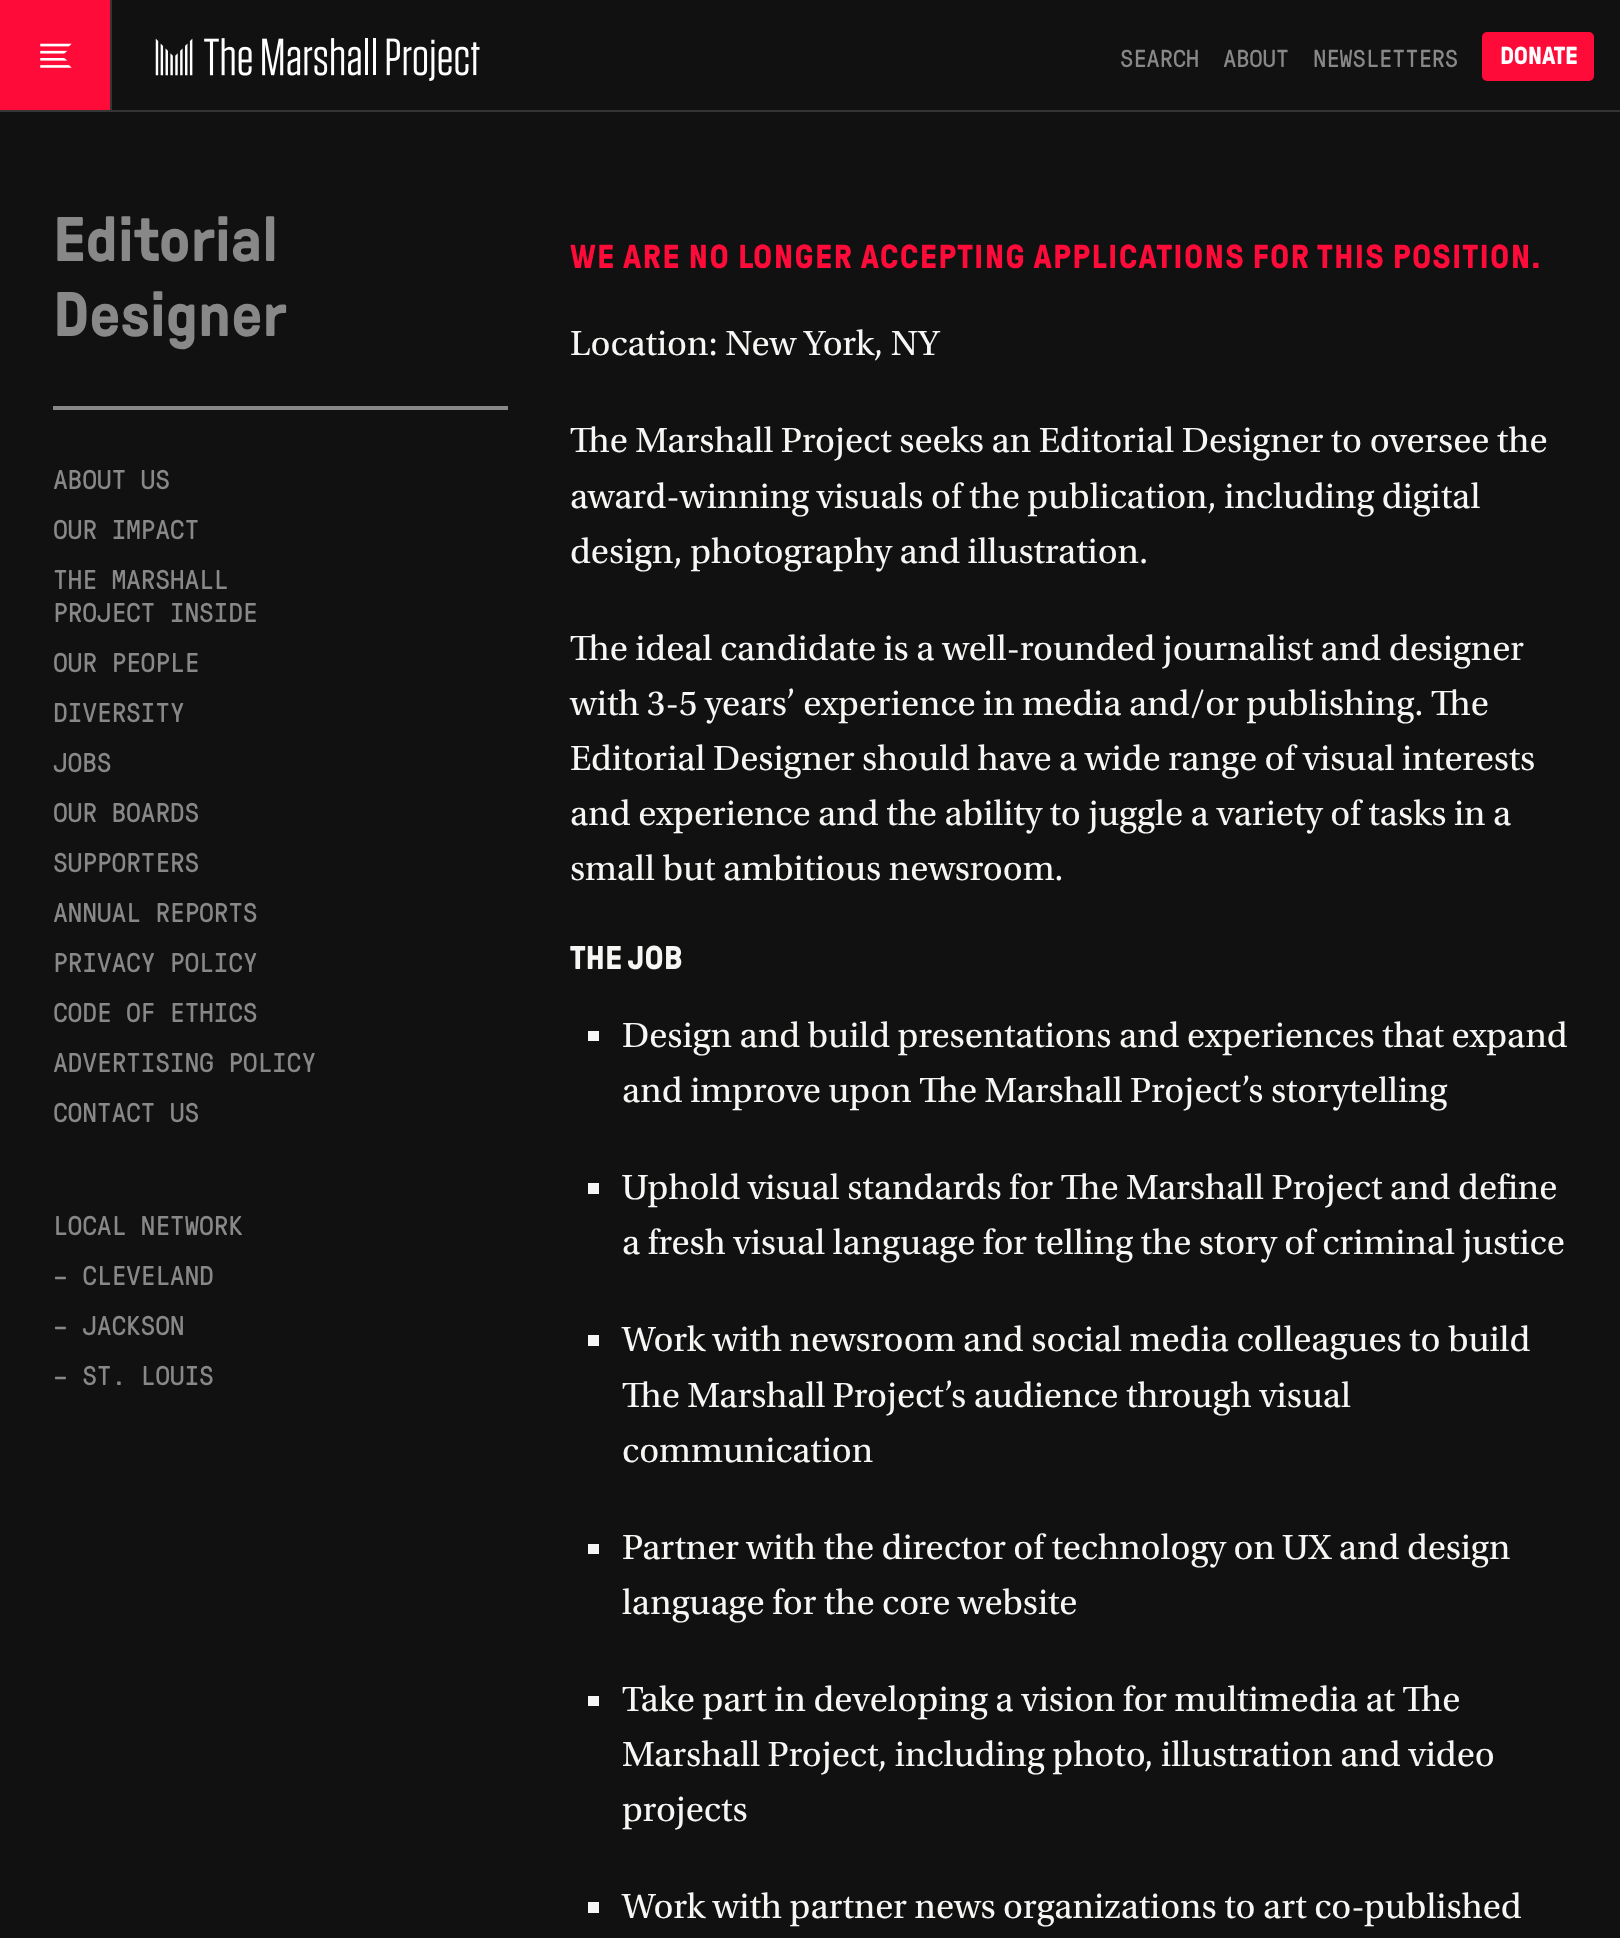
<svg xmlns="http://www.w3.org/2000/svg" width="1620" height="1938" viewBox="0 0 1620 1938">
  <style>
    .t1 { font: 24.5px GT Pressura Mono; letter-spacing: -0.3px; fill: #888; }
    .t2 { font: bold 24.5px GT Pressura; letter-spacing: -0.3px; fill: #fff; }
    .t3 { font: bold 63px GT Pressura; fill: #888; }
    .t4 { font: 27.1px GT Pressura Mono; letter-spacing: -0.3px; fill: #888; }
    .t5 { font: bold 33.25px GT Pressura; letter-spacing: 1.3px; fill: #ff0b3a; }
    .t6 { font: 36.75px Utopia; fill: #f6f6f4; }
    .t7 { font: bold 33px GT Pressura; fill: #f6f6f4; }
  </style>
  <rect width="100%" height="100%" fill="#111"/>
  <rect x="112" y="110" width="1508" height="2" fill="#353535"/>
  <rect x="0" y="0" width="110" height="110" fill="#ff0b3a"/>
  <rect x="110" y="0" width="2" height="112" fill="#353535"/>
  <rect x="0" y="110" width="110" height="2" fill="#353535"/>
  <image x="40" y="43" width="32" height="25" href="images/1.png"/>
  <image x="155" y="38" width="325" height="43" href="images/2.png"/>
  <text x="1120" y="67" class="t1">SEARCH</text>
  <text x="1223" y="67" class="t1">ABOUT</text>
  <text x="1313" y="67" class="t1">NEWSLETTERS</text>
  <rect x="1482" y="32" width="112" height="49" rx="5" fill="#ff0b3a"/>
  <text x="1500" y="64" class="t2">DONATE</text>
  <rect x="53" y="406" width="455" height="4" fill="#888"/>
  <text x="53" y="261" class="t3">Editorial</text>
  <text x="53" y="336" class="t3">Designer</text>
  <text x="53" y="489" class="t4">ABOUT US</text>
  <text x="53" y="539" class="t4">OUR IMPACT</text>
  <text x="53" y="589" class="t4">THE MARSHALL</text>
  <text x="53" y="622" class="t4">PROJECT INSIDE</text>
  <text x="53" y="672" class="t4">OUR PEOPLE</text>
  <text x="53" y="722" class="t4">DIVERSITY</text>
  <text x="53" y="772" class="t4">JOBS</text>
  <text x="53" y="822" class="t4">OUR BOARDS</text>
  <text x="53" y="872" class="t4">SUPPORTERS</text>
  <text x="53" y="922" class="t4">ANNUAL REPORTS</text>
  <text x="53" y="972" class="t4">PRIVACY POLICY</text>
  <text x="53" y="1022" class="t4">CODE OF ETHICS</text>
  <text x="53" y="1072" class="t4">ADVERTISING POLICY</text>
  <text x="53" y="1122" class="t4">CONTACT US</text>
  <text x="53" y="1235" class="t4">LOCAL NETWORK</text>
  <text x="53" y="1285" class="t4">– CLEVELAND</text>
  <text x="53" y="1335" class="t4">– JACKSON</text>
  <text x="53" y="1385" class="t4">– ST. LOUIS</text>
  <text x="570" y="268" class="t5">WE ARE NO LONGER ACCEPTING APPLICATIONS FOR THIS POSITION.</text>
  <text x="570" y="355" class="t6">Location: New York, NY</text>
  <text x="570" y="452" class="t6">The Marshall Project seeks an Editorial Designer to oversee the</text>
  <text x="570" y="508" class="t6">award-winning visuals of the publication, including digital</text>
  <text x="570" y="563" class="t6">design, photography and illustration.</text>
  <text x="570" y="660" class="t6">The ideal candidate is a well-rounded journalist and designer</text>
  <text x="570" y="715" class="t6">with 3-5 years’ experience in media and/or publishing. The</text>
  <text x="570" y="770" class="t6">Editorial Designer should have a wide range of visual interests</text>
  <text x="570" y="825" class="t6">and experience and the ability to juggle a variety of tasks in a</text>
  <text x="570" y="880" class="t6">small but ambitious newsroom.</text>
  <text x="570" y="969" class="t7">THE JOB</text>
  <rect x="588" y="1031" width="11" height="10" fill="#f6f6f4"/>
  <text x="622" y="1047" class="t6">Design and build presentations and experiences that expand</text>
  <text x="622" y="1102" class="t6">and improve upon The Marshall Project’s storytelling</text>
  <rect x="588" y="1183" width="11" height="11" fill="#f6f6f4"/>
  <text x="622" y="1199" class="t6">Uphold visual standards for The Marshall Project and define</text>
  <text x="622" y="1254" class="t6">a fresh visual language for telling the story of criminal justice</text>
  <rect x="588" y="1335" width="11" height="11" fill="#f6f6f4"/>
  <text x="622" y="1351" class="t6">Work with newsroom and social media colleagues to build</text>
  <text x="622" y="1407" class="t6">The Marshall Project’s audience through visual</text>
  <text x="622" y="1462" class="t6">communication</text>
  <rect x="588" y="1544" width="11" height="10" fill="#f6f6f4"/>
  <text x="622" y="1559" class="t6">Partner with the director of technology on UX and design</text>
  <text x="622" y="1614" class="t6">language for the core website</text>
  <rect x="588" y="1696" width="11" height="10" fill="#f6f6f4"/>
  <text x="622" y="1711" class="t6">Take part in developing a vision for multimedia at The</text>
  <text x="622" y="1766" class="t6">Marshall Project, including photo, illustration and video</text>
  <text x="622" y="1821" class="t6">projects</text>
  <rect x="588" y="1902" width="11" height="11" fill="#f6f6f4"/>
  <text x="622" y="1918" class="t6">Work with partner news organizations to art co-published</text>
</svg>
